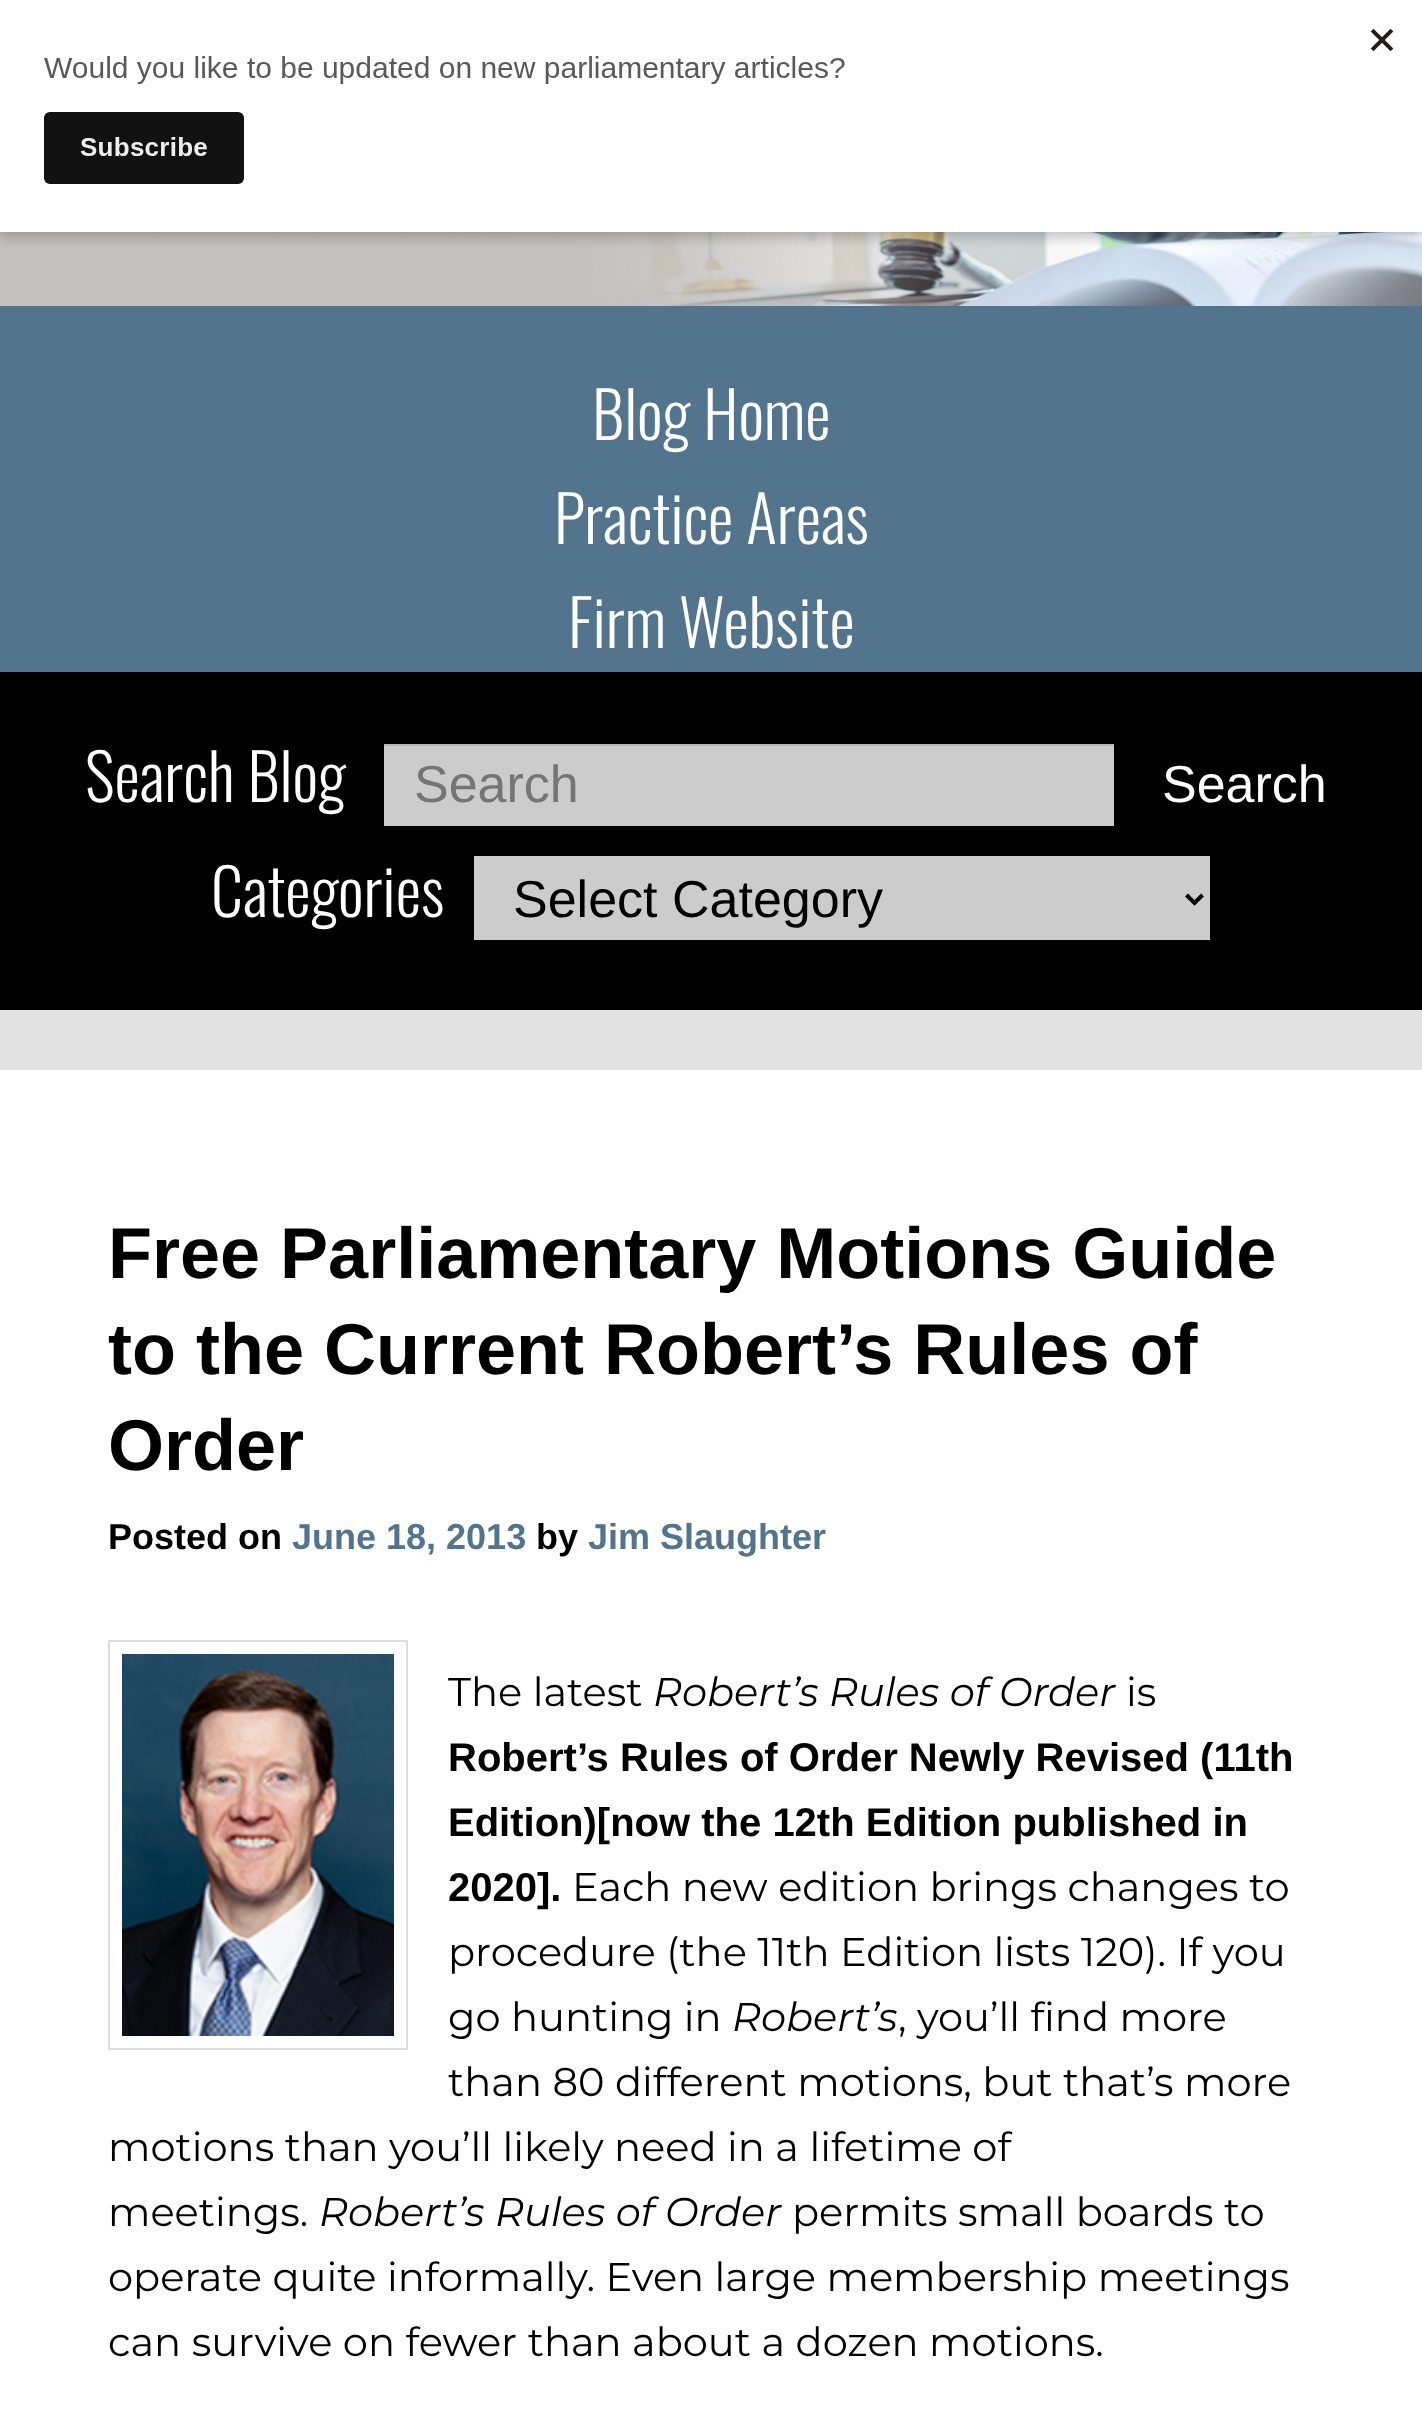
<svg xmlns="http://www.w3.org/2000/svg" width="1422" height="2427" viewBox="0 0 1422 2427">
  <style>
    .t1 { font: 300 64px Oswald; fill: #fff; }
    .t2 { font: 52px Liberation Sans; fill: #757575; }
    .t3 { font: 52px Liberation Sans; fill: #fff; }
    .t4 { font: 52px Liberation Sans; fill: #000; }
    .t5 { font: bold 72px Liberation Sans; fill: #000; }
    .t6 { font: bold 36px Liberation Sans; fill: #000; }
    .t7 { font: bold 36px Liberation Sans; fill: #52748d; }
    .t8 { font: 40px Montserrat; fill: #000; }
    .t9 { font: italic 40px Montserrat; fill: #000; }
    .t10 { font: bold 40px Liberation Sans; fill: #000; }
  </style>
  <rect width="100%" height="100%" fill="#e2e2e2"/>
  <image x="0" y="232" width="1422" height="74" href="images/2.png"/>
  <rect x="0" y="6" width="1422" height="232" fill="#00000033" filter="blur(6px)"/>
  <rect x="0" y="0" width="1422" height="232" fill="#fff"/>
  <image x="44" y="28" width="1350" height="156" href="images/1.png"/>
  <rect x="0" y="306" width="1422" height="366" fill="#52748d"/>
  <text x="592" y="440" class="t1">Blog Home</text>
  <text x="554" y="544" class="t1">Practice Areas</text>
  <text x="568" y="648" class="t1">Firm Website</text>
  <rect x="0" y="672" width="1422" height="338" fill="#000"/>
  <text x="85" y="802" class="t1">Search Blog</text>
  <rect x="384" y="746" width="730" height="80" fill="#ccc"/>
  <rect x="384" y="744" width="730" height="2" fill="#b8b8b8"/>
  <text x="414" y="802" class="t2">Search</text>
  <text x="1162" y="802" class="t3">Search</text>
  <text x="211" y="917" class="t1">Categories</text>
  <rect x="474" y="856" width="736" height="84" fill="#ccc"/>
  <path d="M1186.5 895L1194.5 903L1202.5 895" fill="none" stroke="#000" stroke-width="4"/>
  <text x="513" y="917" class="t4">Select Category</text>
  <rect x="0" y="1070" width="1422" height="1357" fill="#fff"/>
  <text x="108" y="1278" class="t5">Free Parliamentary Motions Guide</text>
  <text x="108" y="1374" class="t5">to the Current Robert’s Rules of</text>
  <text x="108" y="1470" class="t5">Order</text>
  <text x="108" y="1549" class="t6">Posted on</text>
  <text x="292" y="1549" class="t7">June 18, 2013</text>
  <text x="536" y="1549" class="t6">by</text>
  <text x="588" y="1549" class="t7">Jim Slaughter</text>
  <rect x="109" y="1641" width="298" height="408" fill="none" stroke="#ddd" stroke-width="2"/>
  <image x="122" y="1654" width="272" height="382" href="images/3.png"/>
  <text x="448" y="1706" class="t8">The latest</text>
  <text x="653" y="1706" class="t9">Robert’s Rules of Order</text>
  <text x="1126" y="1706" class="t8">is</text>
  <text x="448" y="1771" class="t10">Robert’s Rules of Order Newly Revised (11th</text>
  <text x="448" y="1836" class="t10">Edition)[now the 12th Edition published in</text>
  <text x="448" y="1901" class="t10">2020].</text>
  <text x="572" y="1901" class="t8">Each new edition brings changes to</text>
  <text x="448" y="1966" class="t8">procedure (the 11th Edition lists 120). If you</text>
  <text x="448" y="2031" class="t8">go hunting in</text>
  <text x="732" y="2031" class="t9">Robert’s</text>
  <text x="898" y="2031" class="t8">, you’ll find more</text>
  <text x="448" y="2096" class="t8">than 80 different motions, but that’s more</text>
  <text x="108" y="2161" class="t8">motions than you’ll likely need in a lifetime of</text>
  <text x="108" y="2226" class="t8">meetings.</text>
  <text x="319" y="2226" class="t9">Robert’s Rules of Order</text>
  <text x="792" y="2226" class="t8">permits small boards to</text>
  <text x="108" y="2291" class="t8">operate quite informally. Even large membership meetings</text>
  <text x="108" y="2356" class="t8">can survive on fewer than about a dozen motions.</text>
</svg>
